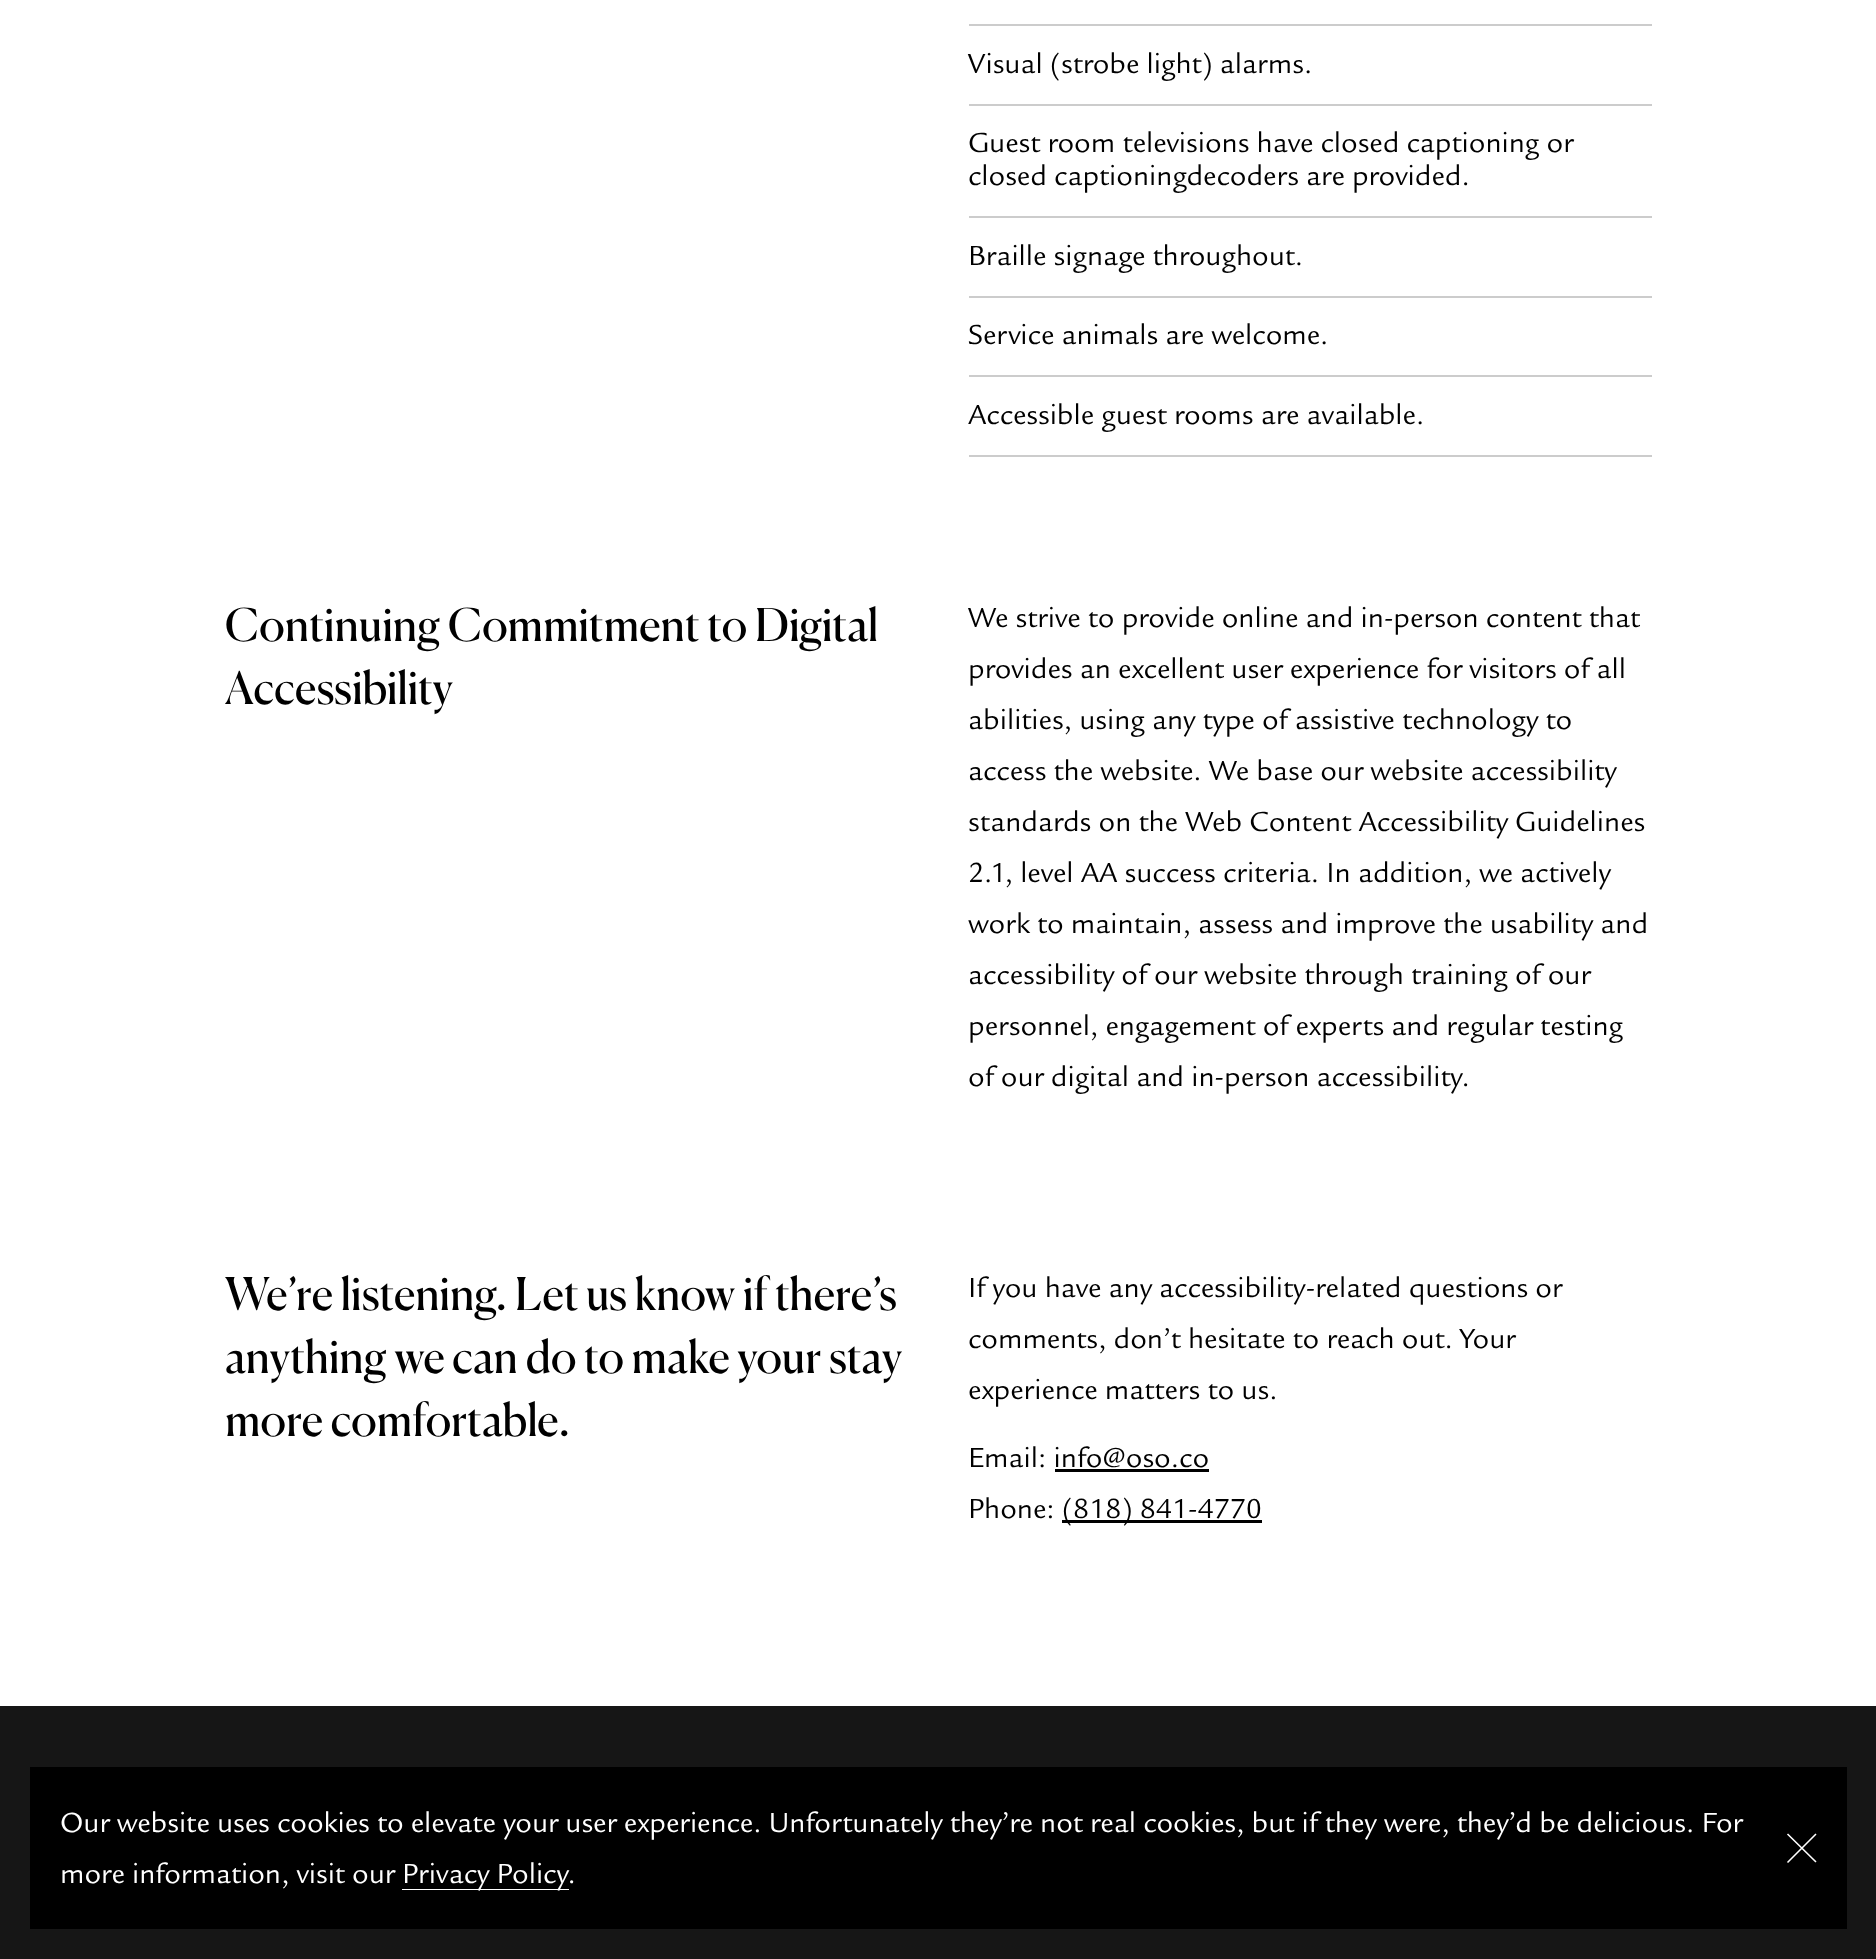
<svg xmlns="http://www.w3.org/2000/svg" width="1876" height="1959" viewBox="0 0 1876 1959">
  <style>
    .t1 { font: 30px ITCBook; fill: #000; }
    .t2 { font: 45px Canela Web; fill: #000; }
    .t3 { font: 30px ITCBook; fill: #fff; }
  </style>
  <rect width="100%" height="100%" fill="#fff"/>
  <rect x="969" y="24" width="683" height="2" fill="#ccc"/>
  <rect x="969" y="104" width="683" height="2" fill="#ccc"/>
  <text x="968" y="73" class="t1">Visual (strobe light) alarms.</text>
  <rect x="969" y="216" width="683" height="2" fill="#ccc"/>
  <text x="968" y="152" class="t1">Guest room televisions have closed captioning or</text>
  <text x="968" y="185" class="t1">closed captioningdecoders are provided.</text>
  <rect x="969" y="296" width="683" height="2" fill="#ccc"/>
  <text x="968" y="265" class="t1">Braille signage throughout.</text>
  <rect x="969" y="375" width="683" height="2" fill="#ccc"/>
  <text x="968" y="344" class="t1">Service animals are welcome.</text>
  <rect x="969" y="455" width="683" height="2" fill="#ccc"/>
  <text x="968" y="424" class="t1">Accessible guest rooms are available.</text>
  <text x="225" y="641" class="t2">Continuing Commitment to Digital</text>
  <text x="225" y="704" class="t2">Accessibility</text>
  <text x="968" y="627" class="t1">We strive to provide online and in-person content that</text>
  <text x="968" y="678" class="t1">provides an excellent user experience for visitors of all</text>
  <text x="968" y="729" class="t1">abilities, using any type of assistive technology to</text>
  <text x="968" y="780" class="t1">access the website. We base our website accessibility</text>
  <text x="968" y="831" class="t1">standards on the Web Content Accessibility Guidelines</text>
  <text x="968" y="882" class="t1">2.1, level AA success criteria. In addition, we actively</text>
  <text x="968" y="933" class="t1">work to maintain, assess and improve the usability and</text>
  <text x="968" y="984" class="t1">accessibility of our website through training of our</text>
  <text x="968" y="1035" class="t1">personnel, engagement of experts and regular testing</text>
  <text x="968" y="1086" class="t1">of our digital and in-person accessibility.</text>
  <text x="225" y="1310" class="t2">We’re listening. Let us know if there’s</text>
  <text x="225" y="1373" class="t2">anything we can do to make your stay</text>
  <text x="225" y="1436" class="t2">more comfortable.</text>
  <text x="968" y="1297" class="t1">If you have any accessibility-related questions or</text>
  <text x="968" y="1348" class="t1">comments, don’t hesitate to reach out. Your</text>
  <text x="968" y="1399" class="t1">experience matters to us.</text>
  <text x="968" y="1467" class="t1">Email: info@oso.co</text>
  <rect x="1055" y="1469" width="154" height="3" fill="#000"/>
  <text x="968" y="1518" class="t1">Phone:</text>
  <rect x="1062" y="1520" width="200" height="3" fill="#000"/>
  <text x="1062" y="1518" class="t1">(818) 841-4770</text>
  <rect x="0" y="1706" width="1876" height="253" fill="#161616"/>
  <rect x="30" y="1767" width="1817" height="162" fill="#000"/>
  <text x="60" y="1832" class="t3">Our website uses cookies to elevate your user experience. Unfortunately they’re not real cookies, but if they were, they’d be delicious. For</text>
  <text x="60" y="1883" class="t3">more information, visit our</text>
  <rect x="402" y="1889" width="167" height="1" fill="#fff"/>
  <text x="402" y="1883" class="t3">Privacy Policy.</text>
  <path d="M1816 1862L1787.5 1834M1787.5 1862.5L1816 1834" fill="none" stroke="#fff" stroke-width="1.6"/>
</svg>
